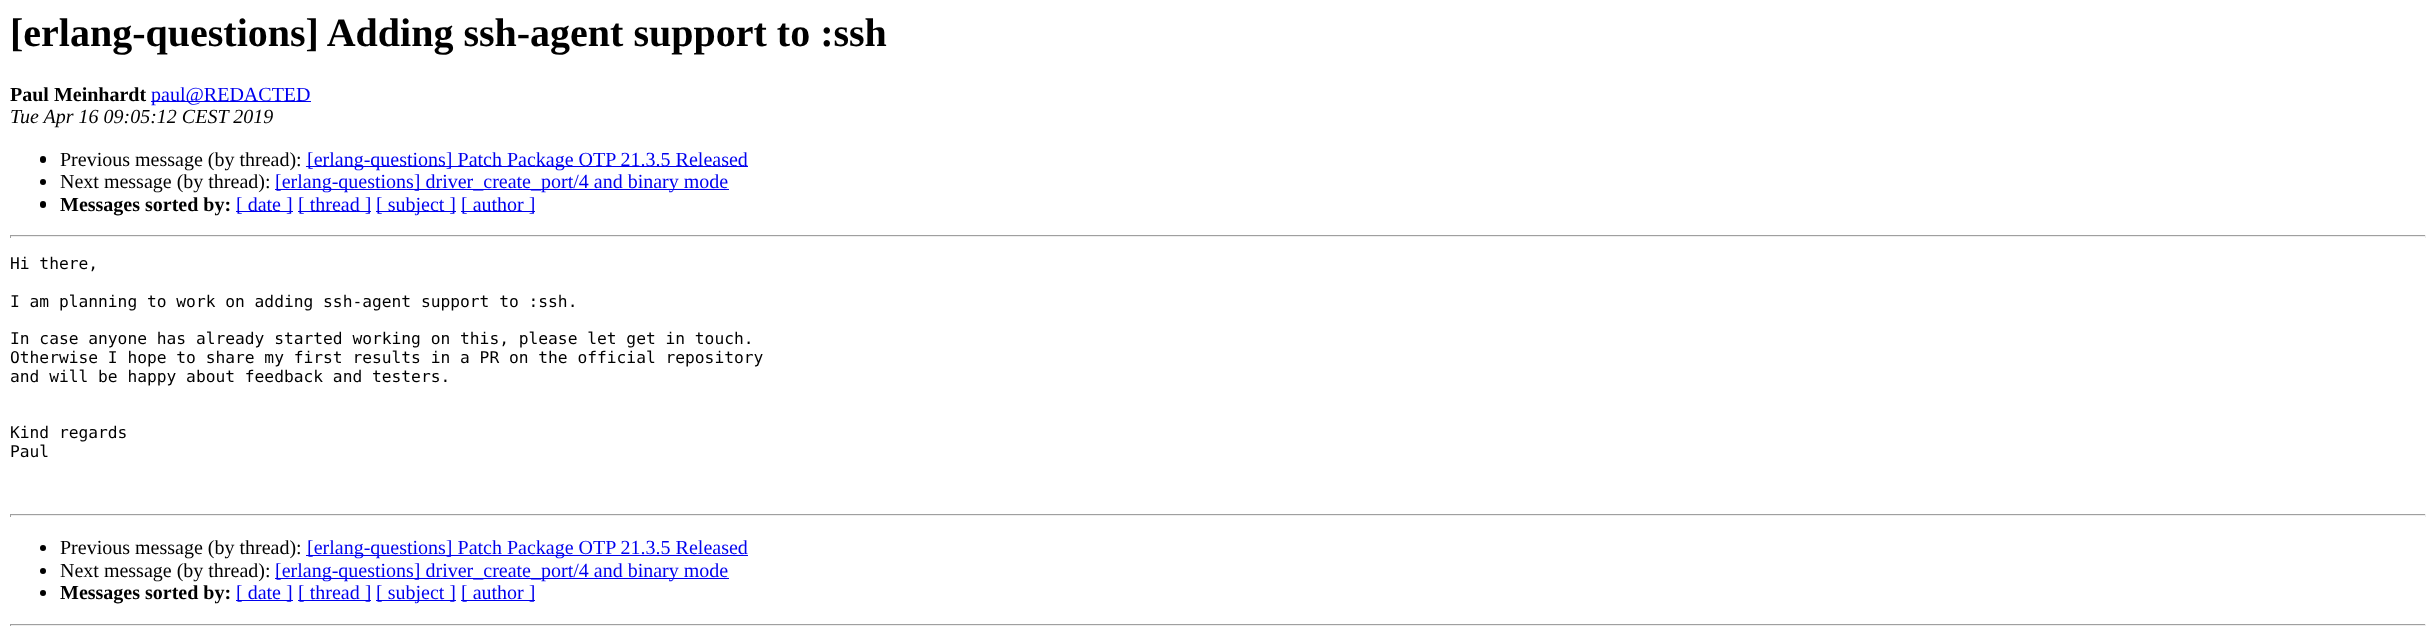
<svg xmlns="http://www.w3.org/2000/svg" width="2436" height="626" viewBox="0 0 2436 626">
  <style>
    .t1 { font: bold 40px Liberation Serif; fill: #000; }
    .t2 { font: bold 20px Liberation Serif; fill: #000; }
    .t3 { font: 20px Liberation Serif; fill: #00e; }
    .t4 { font: italic 20px Liberation Serif; fill: #000; }
    .t5 { font: 20px Liberation Serif; fill: #000; }
    .t6 { font: 16.25px DejaVu Sans Mono; fill: #000; }
  </style>
  <rect width="100%" height="100%" fill="#fff"/>
  <text x="10" y="46" class="t1">[erlang-questions] Adding ssh-agent support to :ssh</text>
  <text x="10" y="101" class="t2">Paul Meinhardt</text>
  <rect x="151" y="101" width="160" height="1" fill="#00e"/>
  <text x="151" y="101" class="t3">paul@REDACTED</text>
  <text x="10" y="123" class="t4">Tue Apr 16 09:05:12 CEST 2019</text>
  <rect x="40" y="156" width="6" height="7" rx="3" fill="#000"/>
  <text x="60" y="166" class="t5">Previous message (by thread):</text>
  <rect x="306" y="166" width="442" height="1" fill="#00e"/>
  <text x="307" y="166" class="t3">[erlang-questions] Patch Package OTP 21.3.5 Released</text>
  <circle cx="43" cy="182" r="3" fill="#000"/>
  <text x="60" y="188" class="t5">Next message (by thread):</text>
  <rect x="275" y="189" width="454" height="1" fill="#00e"/>
  <text x="275" y="188" class="t3">[erlang-questions] driver_create_port/4 and binary mode</text>
  <rect x="40" y="201" width="6" height="7" rx="3" fill="#000"/>
  <text x="60" y="211" class="t2">Messages sorted by:</text>
  <rect x="236" y="211" width="57" height="1" fill="#00e"/>
  <text x="236" y="211" class="t3">[ date ]</text>
  <rect x="298" y="211" width="73" height="1" fill="#00e"/>
  <text x="298" y="211" class="t3">[ thread ]</text>
  <rect x="376" y="211" width="80" height="1" fill="#00e"/>
  <text x="376" y="211" class="t3">[ subject ]</text>
  <rect x="461" y="211" width="74" height="1" fill="#00e"/>
  <text x="461" y="211" class="t3">[ author ]</text>
  <rect x="10" y="235" width="2416" height="1" fill="#9f9f9f"/>
  <rect x="2425" y="235" width="1" height="3" fill="#eee"/>
  <rect x="10" y="236" width="2416" height="1" fill="#eee"/>
  <rect x="10" y="235" width="1" height="3" fill="#9f9f9f"/>
  <text x="10" y="269" class="t6">Hi there,</text>
  <text x="10" y="307" class="t6">I am planning to work on adding ssh-agent support to :ssh.</text>
  <text x="10" y="344" class="t6">In case anyone has already started working on this, please let get in touch.</text>
  <text x="10" y="363" class="t6">Otherwise I hope to share my first results in a PR on the official repository</text>
  <text x="10" y="382" class="t6">and will be happy about feedback and testers.</text>
  <text x="10" y="438" class="t6">Kind regards</text>
  <text x="10" y="457" class="t6">Paul</text>
  <rect x="10" y="514" width="2416" height="1" fill="#9f9f9f"/>
  <rect x="2425" y="514" width="1" height="3" fill="#eee"/>
  <rect x="10" y="515" width="2416" height="1" fill="#eee"/>
  <rect x="10" y="514" width="1" height="3" fill="#9f9f9f"/>
  <circle cx="43" cy="548" r="3" fill="#000"/>
  <text x="60" y="554" class="t5">Previous message (by thread):</text>
  <rect x="306" y="555" width="442" height="1" fill="#00e"/>
  <text x="307" y="554" class="t3">[erlang-questions] Patch Package OTP 21.3.5 Released</text>
  <circle cx="43" cy="571" r="3" fill="#000"/>
  <text x="60" y="577" class="t5">Next message (by thread):</text>
  <rect x="275" y="578" width="454" height="1" fill="#00e"/>
  <text x="275" y="577" class="t3">[erlang-questions] driver_create_port/4 and binary mode</text>
  <circle cx="43" cy="593" r="3" fill="#000"/>
  <text x="60" y="599" class="t2">Messages sorted by:</text>
  <rect x="236" y="600" width="57" height="1" fill="#00e"/>
  <text x="236" y="599" class="t3">[ date ]</text>
  <rect x="298" y="600" width="73" height="1" fill="#00e"/>
  <text x="298" y="599" class="t3">[ thread ]</text>
  <rect x="376" y="600" width="80" height="1" fill="#00e"/>
  <text x="376" y="599" class="t3">[ subject ]</text>
  <rect x="461" y="600" width="74" height="1" fill="#00e"/>
  <text x="461" y="599" class="t3">[ author ]</text>
  <rect x="10" y="624" width="2416" height="1" fill="#9f9f9f"/>
  <rect x="2425" y="624" width="1" height="2" fill="#eee"/>
  <rect x="10" y="625" width="2416" height="1" fill="#eee"/>
  <rect x="10" y="624" width="1" height="2" fill="#9f9f9f"/>
</svg>
